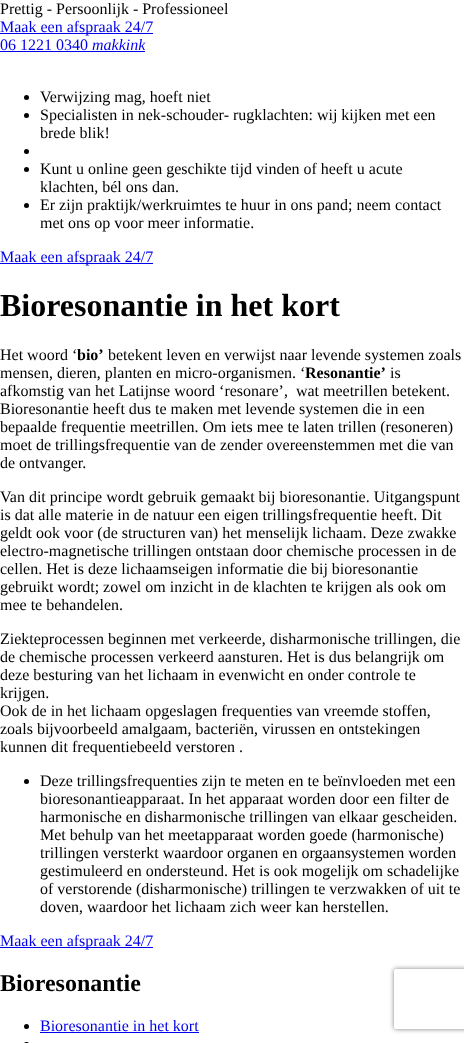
<svg xmlns="http://www.w3.org/2000/svg" width="464" height="1043" viewBox="0 0 464 1043">
  <style>
    .t1 { font: 16px Liberation Serif; fill: #000; }
    .t2 { font: 16px Liberation Serif; fill: #00e; }
    .t3 { font: italic 16px Liberation Serif; fill: #00e; }
    .t4 { font: bold 32px Liberation Serif; fill: #000; }
    .t5 { font: bold 16px Liberation Serif; fill: #000; }
    .t6 { font: bold 24px Liberation Serif; fill: #000; }
  </style>
  <defs>
    <clipPath id="clip1"><path d="M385 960H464V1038H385ZM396 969H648C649 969 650 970 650 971V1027C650 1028 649 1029 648 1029H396C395 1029 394 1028 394 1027V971C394 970 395 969 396 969Z" clip-rule="evenodd"/></clipPath>
  </defs>
  <rect width="100%" height="100%" fill="#fff"/>
  <text x="0" y="14" class="t1">Prettig - Persoonlijk - Professioneel</text>
  <rect x="0" y="33" width="153" height="1" fill="#00e"/>
  <text x="0" y="32" class="t2">Maak een afspraak 24/7</text>
  <text x="0" y="50" class="t2">06 1221 0340</text>
  <rect x="0" y="51" width="145" height="1" fill="#00e"/>
  <text x="92" y="50" class="t3">makkink</text>
  <circle cx="26.5" cy="97.5" r="2.5" fill="#000"/>
  <text x="40" y="102" class="t1">Verwijzing mag, hoeft niet</text>
  <circle cx="26.5" cy="115.5" r="2.5" fill="#000"/>
  <text x="40" y="120" class="t1">Specialisten in nek-schouder- rugklachten: wij kijken met een</text>
  <text x="40" y="138" class="t1">brede blik!</text>
  <circle cx="26.5" cy="151.5" r="2.5" fill="#000"/>
  <circle cx="26.5" cy="169.5" r="2.5" fill="#000"/>
  <text x="40" y="174" class="t1">Kunt u online geen geschikte tijd vinden of heeft u acute</text>
  <text x="40" y="192" class="t1">klachten, bél ons dan.</text>
  <circle cx="26.5" cy="205.5" r="2.5" fill="#000"/>
  <text x="40" y="210" class="t1">Er zijn praktijk/werkruimtes te huur in ons pand; neem contact</text>
  <text x="40" y="228" class="t1">met ons op voor meer informatie.</text>
  <rect x="0" y="263" width="153" height="1" fill="#00e"/>
  <text x="0" y="262" class="t2">Maak een afspraak 24/7</text>
  <text x="0" y="316" class="t4">Bioresonantie in het kort</text>
  <text x="0" y="360" class="t1">Het woord ‘</text>
  <text x="77" y="360" class="t5">bio’</text>
  <text x="108" y="360" class="t1">betekent leven en verwijst naar levende systemen zoals</text>
  <text x="0" y="378" class="t1">mensen, dieren, planten en micro-organismen. ‘</text>
  <text x="305" y="378" class="t5">Resonantie’</text>
  <text x="390" y="378" class="t1">is</text>
  <text x="0" y="396" class="t1" xml:space="preserve">afkomstig van het Latijnse woord ‘resonare’,  wat meetrillen betekent.</text>
  <text x="0" y="414" class="t1">Bioresonantie heeft dus te maken met levende systemen die in een</text>
  <text x="0" y="432" class="t1">bepaalde frequentie meetrillen. Om iets mee te laten trillen (resoneren)</text>
  <text x="0" y="450" class="t1">moet de trillingsfrequentie van de zender overeenstemmen met die van</text>
  <text x="0" y="468" class="t1">de ontvanger.</text>
  <text x="0" y="502" class="t1">Van dit principe wordt gebruik gemaakt bij bioresonantie. Uitgangspunt</text>
  <text x="0" y="520" class="t1">is dat alle materie in de natuur een eigen trillingsfrequentie heeft. Dit</text>
  <text x="0" y="538" class="t1">geldt ook voor (de structuren van) het menselijk lichaam. Deze zwakke</text>
  <text x="0" y="556" class="t1">electro-magnetische trillingen ontstaan door chemische processen in de</text>
  <text x="0" y="574" class="t1">cellen. Het is deze lichaamseigen informatie die bij bioresonantie</text>
  <text x="0" y="592" class="t1">gebruikt wordt; zowel om inzicht in de klachten te krijgen als ook om</text>
  <text x="0" y="610" class="t1">mee te behandelen.</text>
  <text x="0" y="644" class="t1">Ziekteprocessen beginnen met verkeerde, disharmonische trillingen, die</text>
  <text x="0" y="662" class="t1">de chemische processen verkeerd aansturen. Het is dus belangrijk om</text>
  <text x="0" y="680" class="t1">deze besturing van het lichaam in evenwicht en onder controle te</text>
  <text x="0" y="698" class="t1">krijgen.</text>
  <text x="0" y="716" class="t1">Ook de in het lichaam opgeslagen frequenties van vreemde stoffen,</text>
  <text x="0" y="734" class="t1">zoals bijvoorbeeld amalgaam, bacteriën, virussen en ontstekingen</text>
  <text x="0" y="752" class="t1">kunnen dit frequentiebeeld verstoren .</text>
  <circle cx="26.5" cy="781.5" r="2.5" fill="#000"/>
  <text x="40" y="786" class="t1">Deze trillingsfrequenties zijn te meten en te beïnvloeden met een</text>
  <text x="40" y="804" class="t1">bioresonantieapparaat. In het apparaat worden door een filter de</text>
  <text x="40" y="822" class="t1">harmonische en disharmonische trillingen van elkaar gescheiden.</text>
  <text x="40" y="840" class="t1">Met behulp van het meetapparaat worden goede (harmonische)</text>
  <text x="40" y="858" class="t1">trillingen versterkt waardoor organen en orgaansystemen worden</text>
  <text x="40" y="876" class="t1">gestimuleerd en ondersteund. Het is ook mogelijk om schadelijke</text>
  <text x="40" y="894" class="t1">of verstorende (disharmonische) trillingen te verzwakken of uit te</text>
  <text x="40" y="912" class="t1">doven, waardoor het lichaam zich weer kan herstellen.</text>
  <rect x="0" y="947" width="153" height="1" fill="#00e"/>
  <text x="0" y="946" class="t2">Maak een afspraak 24/7</text>
  <text x="0" y="991" class="t6">Bioresonantie</text>
  <circle cx="26.5" cy="1026.5" r="2.5" fill="#000"/>
  <text x="40" y="1031" class="t2">Bioresonantie in het kort</text>
  <rect x="40" y="1032" width="159" height="1" fill="#00e"/>
  <rect x="24" y="1042" width="5" height="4" rx="2.5" fill="#000"/>
  <g clip-path="url(#clip1)">
    <rect x="394" y="969" width="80" height="60" rx="2" fill="#808080" filter="blur(2.5px)"/>
  </g>
</svg>
